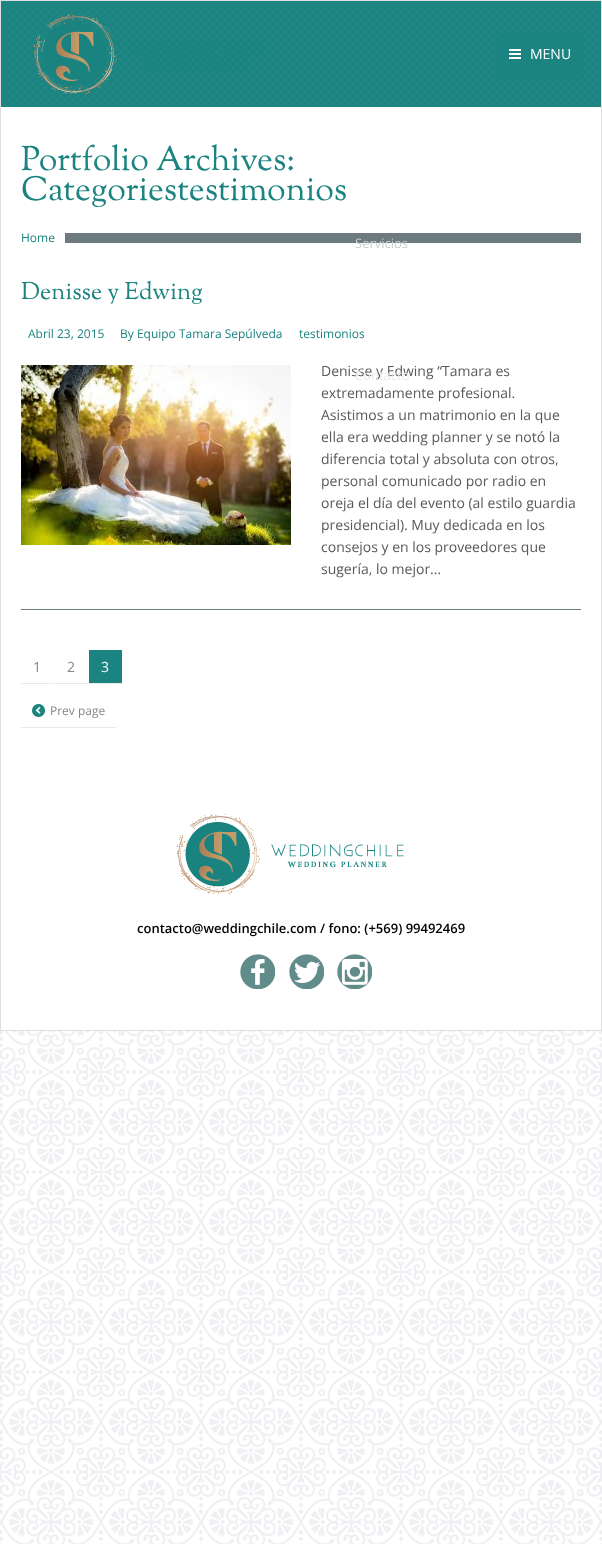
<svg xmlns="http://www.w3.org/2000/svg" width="602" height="1544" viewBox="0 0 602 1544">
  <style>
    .t1 { font: 14px Open Sans; fill: #fff; }
    .t2 { font: 13px Open Sans; fill: #c8cdcf; }
    .t3 { font: 14px Open Sans; fill: #57595a; }
    .t4 { font: 13px Open Sans; fill: #e8e9e9; }
    .t5 { font: 34px Sorts Mill Goudy; fill: #1b8380; }
    .t6 { font: 12px Open Sans; fill: #1b8380; }
    .t7 { font: 24px Sorts Mill Goudy; fill: #1b8380; }
    .t8 { font: 14px Open Sans; fill: #8a8585; }
    .t9 { font: 12px Open Sans; fill: #8a8585; }
    .t10 { font: 600 13px Open Sans; fill: #000; }
  </style>
  <rect width="100%" height="100%" fill="#fff"/>
  <image x="0" y="1031" width="602" height="513" href="images/1.png"/>
  <rect x="0.5" y="0.5" width="601" height="1030" fill="none" stroke="#dfdfdf"/>
  <rect x="1" y="1" width="600" height="106" fill="#1b8380"/>
  <image x="1" y="1" width="600" height="106" href="images/2.png"/>
  <image x="33" y="14" width="228" height="81" href="images/3.png"/>
  <rect x="499" y="33" width="82" height="42" fill="#1b8380"/>
  <rect x="509" y="57" width="12" height="2" fill="#fff"/>
  <rect x="509" y="53" width="12" height="2" fill="#fff"/>
  <rect x="509" y="49" width="12" height="2" fill="#fff"/>
  <text x="530" y="59" class="t1">MENU</text>
  <rect x="65" y="233" width="516" height="10" fill="#6d7b80"/>
  <text x="355" y="248" class="t2">Servicios</text>
  <text x="321" y="376" class="t3">Denisse y Edwing “Tamara es</text>
  <text x="355" y="380" class="t4">Contacto</text>
  <text x="21" y="170" class="t5">Portfolio Archives:</text>
  <text x="21" y="200" class="t5">Categoriestestimonios</text>
  <text x="21" y="242" class="t6">Home</text>
  <rect x="21" y="609" width="560" height="1" fill="#6d7b80"/>
  <text x="21" y="299" class="t7">Denisse y Edwing</text>
  <text x="28" y="338" class="t6">Abril 23, 2015</text>
  <text x="120" y="338" class="t6">By Equipo Tamara Sepúlveda</text>
  <text x="299" y="338" class="t6">testimonios</text>
  <image x="21" y="365" width="270" height="180" href="images/4.png"/>
  <text x="321" y="398" class="t3">extremadamente profesional.</text>
  <text x="321" y="420" class="t3">Asistimos a un matrimonio en la que</text>
  <text x="321" y="442" class="t3">ella era wedding planner y se notó la</text>
  <text x="321" y="464" class="t3">diferencia total y absoluta con otros,</text>
  <text x="321" y="486" class="t3">personal comunicado por radio en</text>
  <text x="321" y="508" class="t3">oreja el día del evento (al estilo guardia</text>
  <text x="321" y="530" class="t3">presidencial). Muy dedicada en los</text>
  <text x="321" y="552" class="t3">consejos y en los proveedores que</text>
  <text x="321" y="574" class="t3">sugería, lo mejor...</text>
  <rect x="21" y="683" width="33" height="1" fill="#e9e9e9"/>
  <text x="33" y="672" class="t8">1</text>
  <rect x="55" y="683" width="33" height="1" fill="#e9e9e9"/>
  <text x="67" y="672" class="t8">2</text>
  <rect x="89" y="683" width="33" height="1" fill="#e9e9e9"/>
  <rect x="89" y="650" width="33" height="33" fill="#1b8380"/>
  <text x="101" y="672" class="t1">3</text>
  <rect x="21" y="727" width="95" height="1" fill="#e9e9e9"/>
  <image x="32" y="704" width="13" height="13" href="images/5.png"/>
  <text x="50" y="715" class="t9">Prev page</text>
  <image x="176" y="814" width="228" height="81" href="images/6.png"/>
  <text x="137" y="933" class="t10">contacto@weddingchile.com / fono: (+569) 99492469</text>
  <image x="240" y="954" width="35" height="35" href="images/7.png"/>
  <image x="289" y="954" width="35" height="35" href="images/8.png"/>
  <image x="337" y="954" width="35" height="35" href="images/9.png"/>
</svg>
